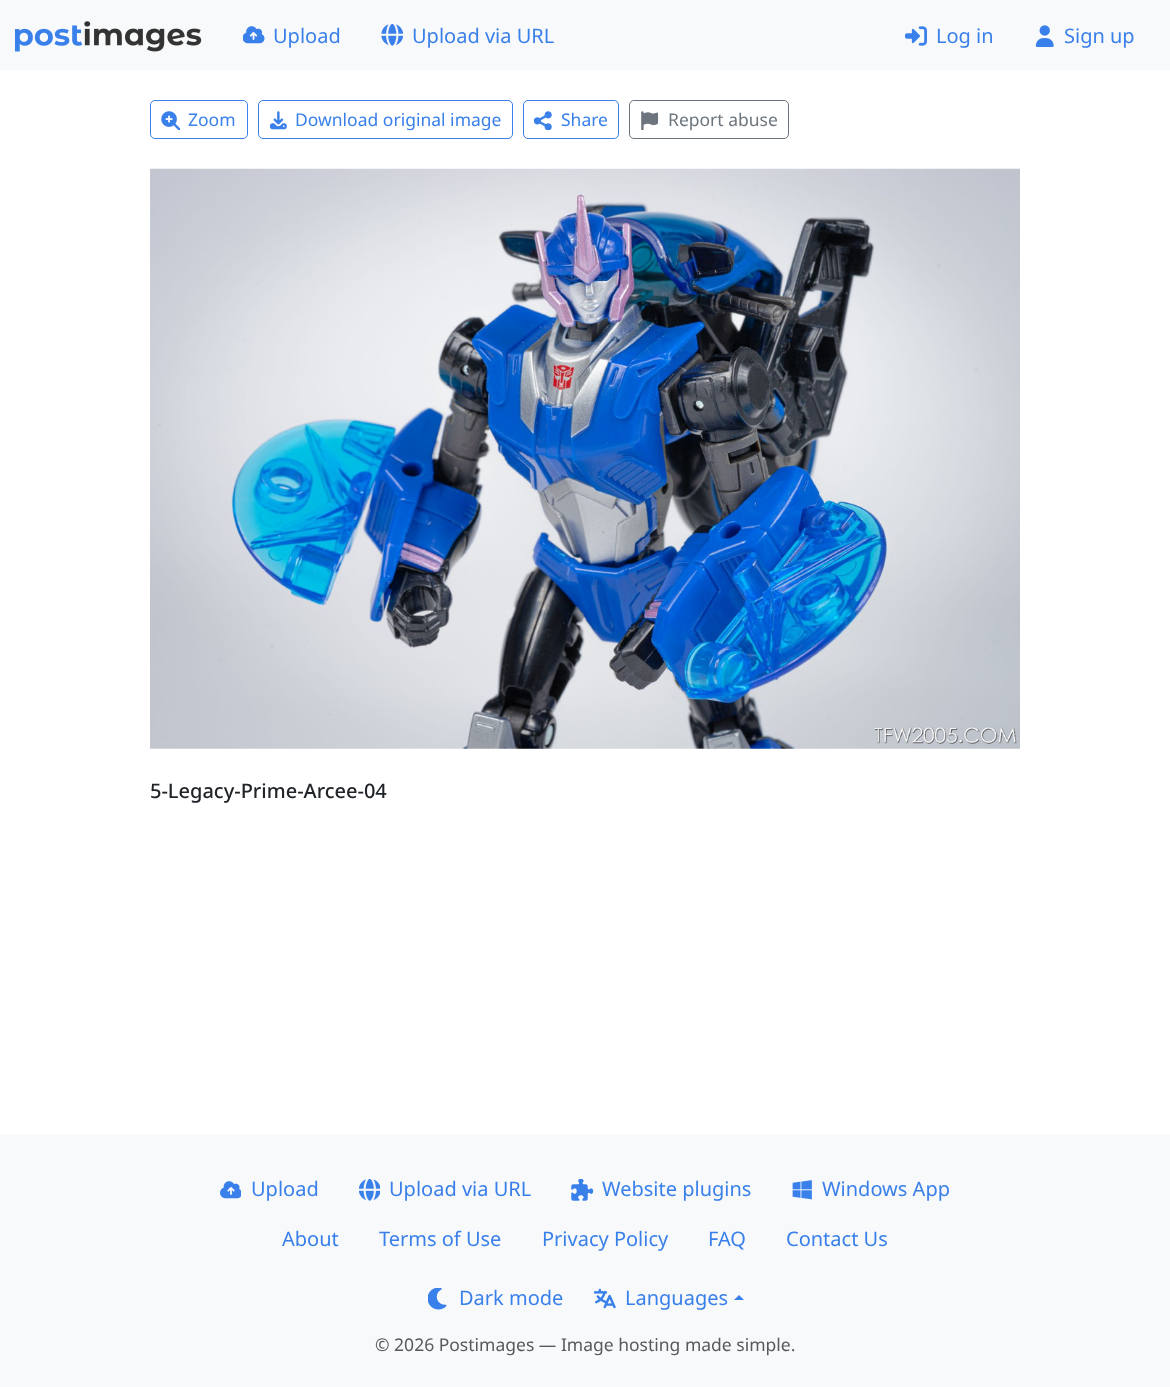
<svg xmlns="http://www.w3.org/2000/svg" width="1170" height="1387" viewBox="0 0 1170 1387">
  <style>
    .t1 { font: 20px Noto Sans; fill: #3a80ea; }
    .t2 { font: 17.5px Noto Sans; fill: #3a80ea; }
    .t3 { font: 17.5px Noto Sans; fill: #6c757d; }
    .t4 { font: 500 20px Noto Sans; fill: #212529; }
    .t5 { font: 17.5px Noto Sans; fill: #575a5d; }
  </style>
  <rect width="100%" height="100%" fill="#fff"/>
  <rect x="0" y="0" width="1170" height="70" fill="#f8f9fa"/>
  <image x="15" y="21" width="187" height="31" href="images/1.png"/>
  <image x="243" y="26" width="22" height="18" href="images/2.png"/>
  <text x="273" y="43" class="t1">Upload</text>
  <image x="381" y="24" width="22" height="22" href="images/3.png"/>
  <text x="412" y="43" class="t1">Upload via URL</text>
  <image x="905" y="26" width="22" height="20" href="images/4.png"/>
  <text x="936" y="43" class="t1">Log in</text>
  <image x="1035" y="25" width="19" height="22" href="images/5.png"/>
  <text x="1064" y="43" class="t1">Sign up</text>
  <rect x="150.5" y="100.5" width="97" height="38" rx="4.5" fill="none" stroke="#3a80ea"/>
  <image x="161" y="111" width="19" height="19" href="images/6.png"/>
  <text x="188" y="126" class="t2">Zoom</text>
  <rect x="258.5" y="100.5" width="254" height="38" rx="4.5" fill="none" stroke="#3a80ea"/>
  <image x="269" y="111" width="18" height="19" href="images/7.png"/>
  <text x="295" y="126" class="t2">Download original image</text>
  <rect x="523.5" y="100.5" width="95" height="38" rx="4.5" fill="none" stroke="#3a80ea"/>
  <image x="534" y="111" width="18" height="19" href="images/8.png"/>
  <text x="561" y="126" class="t2">Share</text>
  <rect x="629.5" y="100.5" width="159" height="38" rx="4.5" fill="none" stroke="#6c757d"/>
  <image x="641" y="111" width="18" height="19" href="images/9.png"/>
  <text x="668" y="126" class="t3">Report abuse</text>
  <image x="150" y="168" width="870" height="581" href="images/10.png"/>
  <text x="150" y="798" class="t4">5-Legacy-Prime-Arcee-04</text>
  <rect x="0" y="1134" width="1170" height="253" fill="#f8f9fa"/>
  <image x="220" y="1181" width="21" height="18" href="images/11.png"/>
  <text x="251" y="1196" class="t1">Upload</text>
  <image x="359" y="1179" width="21" height="22" href="images/12.png"/>
  <text x="389" y="1196" class="t1">Upload via URL</text>
  <image x="571" y="1179" width="23" height="22" href="images/13.png"/>
  <text x="602" y="1196" class="t1">Website plugins</text>
  <image x="792" y="1180" width="20" height="20" href="images/14.png"/>
  <text x="822" y="1196" class="t1">Windows App</text>
  <text x="282" y="1246" class="t1">About</text>
  <text x="379" y="1246" class="t1">Terms of Use</text>
  <text x="542" y="1246" class="t1">Privacy Policy</text>
  <text x="708" y="1246" class="t1">FAQ</text>
  <text x="786" y="1246" class="t1">Contact Us</text>
  <image x="428" y="1288" width="19" height="22" href="images/15.png"/>
  <text x="459" y="1305" class="t1">Dark mode</text>
  <image x="594" y="1288" width="22" height="21" href="images/16.png"/>
  <text x="625" y="1305" class="t1">Languages</text>
  <path d="M744 1300H734L739 1295Z" fill="#3a80ea"/>
  <text x="375" y="1351" class="t5">© 2026 Postimages — Image hosting made simple.</text>
</svg>
